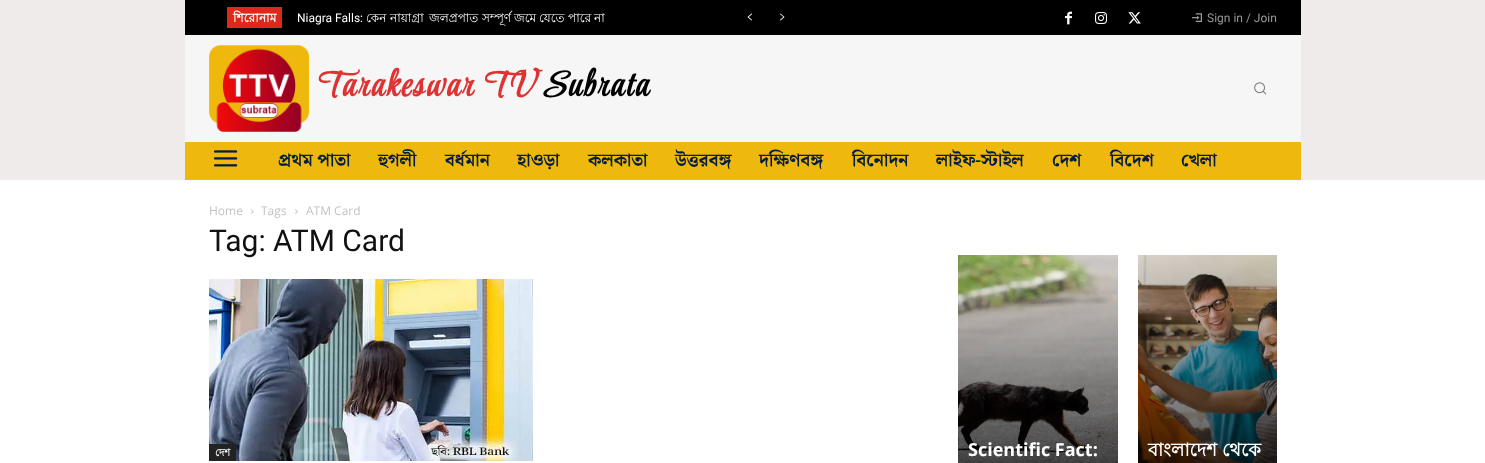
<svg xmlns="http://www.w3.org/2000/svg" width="1485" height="463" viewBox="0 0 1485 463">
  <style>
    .t1 { font: bold 12px Lohit Bengali; letter-spacing: 0.25px; fill: #fff; }
    .t2 { font: 12px Roboto; fill: #fff; }
    .t3 { font: 12px Lohit Bengali; fill: #fff; }
    .t4 { font: 12px Roboto; fill: #999; }
    .t5 { font: italic bold 36px Style Script; letter-spacing: 2.5px; fill: #d33; }
    .t6 { font: italic bold 36px Style Script; letter-spacing: 2.5px; fill: #000; }
    .t7 { font: bold 18px Noto Serif Bengali; fill: #011d44; }
    .t8 { font: 12px Open Sans; fill: #c3c3c3; }
    .t9 { font: 30px Roboto; fill: #111; }
    .t10 { font: bold 10px Lohit Bengali; fill: #fff; }
    .t11 { font: bold 18px Open Sans; fill: #fff; }
    .t12 { font: bold 18px Lohit Bengali; fill: #fff; }
  </style>
  <rect width="100%" height="100%" fill="#fff"/>
  <rect x="0" y="0" width="1485" height="180" fill="#efebea"/>
  <rect x="185" y="0" width="1116" height="35" fill="#000"/>
  <rect x="227" y="7" width="55" height="21" fill="#de281a"/>
  <text x="233" y="22" class="t1">শিরোনাম</text>
  <text x="297" y="22" class="t2">Niagra Falls:</text>
  <text x="366" y="22" class="t3">কেন</text>
  <text x="390" y="22" class="t3">নায়াগ্রা</text>
  <text x="429" y="22" class="t3">জলপ্রপাত</text>
  <text x="482" y="22" class="t3">সম্পূর্ণ</text>
  <text x="514" y="22" class="t3">জমে</text>
  <text x="539" y="22" class="t3">যেতে</text>
  <text x="568" y="22" class="t3">পারে</text>
  <text x="594" y="22" class="t3">না</text>
  <image x="747" y="13" width="5" height="8" href="images/1.png"/>
  <image x="780" y="13" width="5" height="8" href="images/2.png"/>
  <image x="1065" y="11" width="7" height="14" href="images/3.png"/>
  <image x="1095" y="12" width="12" height="12" href="images/4.png"/>
  <image x="1128" y="12" width="13" height="12" href="images/5.png"/>
  <image x="1192" y="13" width="10" height="9" href="images/6.png"/>
  <text x="1207" y="22" class="t4">Sign in / Join</text>
  <rect x="185" y="35" width="1116" height="107" fill="#f6f6f6"/>
  <image x="209" y="45" width="100" height="87" href="images/7.png"/>
  <text x="314" y="96" class="t5">Tarakeswar TV</text>
  <text x="542" y="96" class="t6">Subrata</text>
  <image x="1254" y="82" width="13" height="13" href="images/8.png"/>
  <rect x="185" y="142" width="1116" height="38" fill="#eeb80c"/>
  <image x="214" y="150" width="24" height="17" href="images/9.png"/>
  <text x="278" y="166" class="t7">প্রথম পাতা</text>
  <text x="378" y="166" class="t7">হুগলী</text>
  <text x="445" y="166" class="t7">বর্ধমান</text>
  <text x="517" y="166" class="t7">হাওড়া</text>
  <text x="588" y="166" class="t7">কলকাতা</text>
  <text x="675" y="166" class="t7">উত্তরবঙ্গ</text>
  <text x="759" y="166" class="t7">দক্ষিণবঙ্গ</text>
  <text x="852" y="166" class="t7">বিনোদন</text>
  <text x="936" y="166" class="t7">লাইফ-স্টাইল</text>
  <text x="1052" y="166" class="t7">দেশ</text>
  <text x="1110" y="166" class="t7">বিদেশ</text>
  <text x="1181" y="166" class="t7">খেলা</text>
  <text x="209" y="215" class="t8">Home</text>
  <image x="251" y="209" width="3" height="5" href="images/10.png"/>
  <text x="261" y="215" class="t8">Tags</text>
  <image x="295" y="209" width="3" height="5" href="images/10.png"/>
  <text x="306" y="215" class="t8">ATM Card</text>
  <text x="209" y="251" class="t9">Tag: ATM Card</text>
  <image x="209" y="279" width="324" height="182" href="images/11.png"/>
  <rect x="209" y="444" width="27" height="17" fill="#222"/>
  <text x="215" y="456" class="t10">দেশ</text>
  <image x="958" y="255" width="160" height="208" href="images/12.png"/>
  <text x="968" y="456" class="t11">Scientific Fact:</text>
  <image x="1138" y="255" width="139" height="208" href="images/13.png"/>
  <text x="1148" y="456" class="t12">বাংলাদেশ থেকে</text>
</svg>
